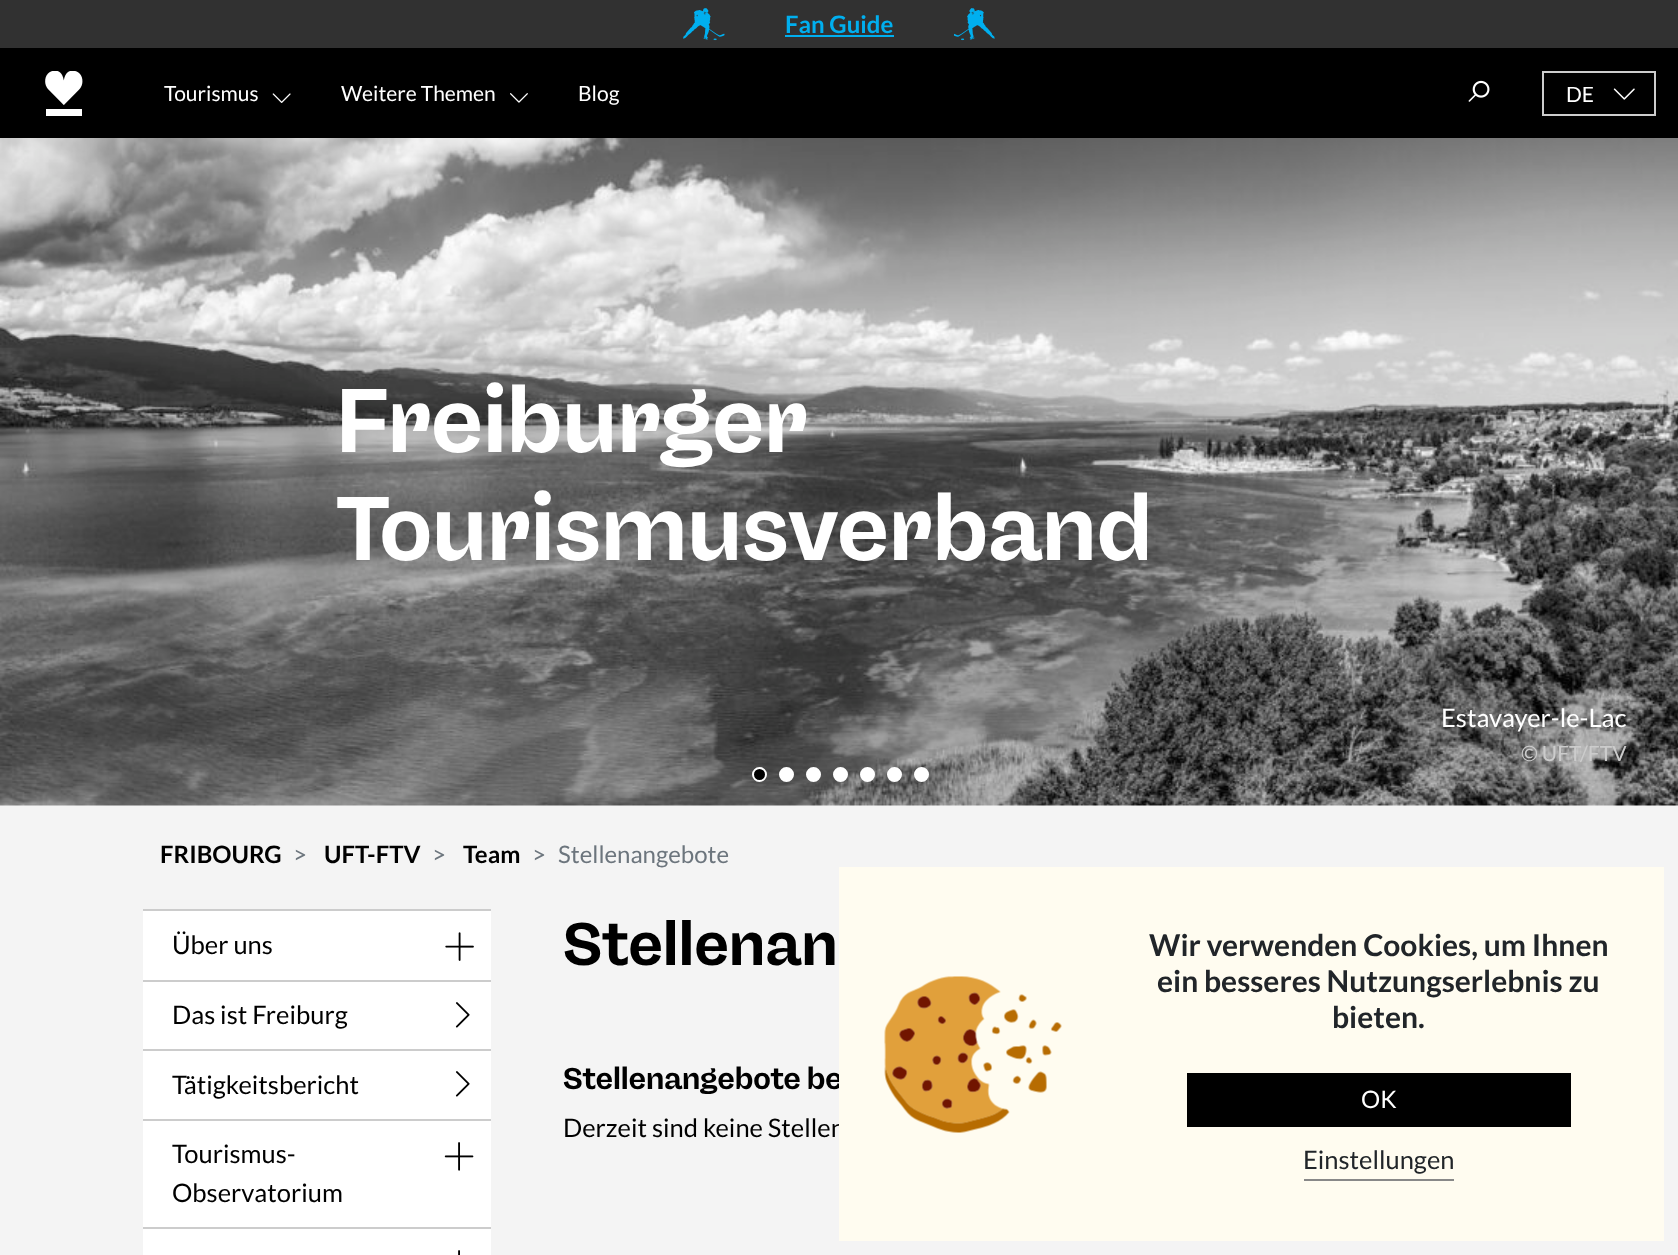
<svg xmlns="http://www.w3.org/2000/svg" width="1678" height="1255" viewBox="0 0 1678 1255">
  <style>
    .t1 { font: bold 24px Lato; fill: #00afef; }
    .t2 { font: 21px Lato; fill: #fff; }
    .t3 { font: bold 90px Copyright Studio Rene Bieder; fill: #fff; }
    .t4 { font: 25.5px Lato; fill: #fff; }
    .t5 { font: 21px Lato; fill: #ccc; }
    .t6 { font: bold 24px Lato; fill: #000; }
    .t7 { font: 24px Lato; fill: #6c757d; }
    .t8 { font: 25.5px Lato; fill: #000; }
    .t9 { font: bold 60px Copyright Studio Rene Bieder; fill: #000; }
    .t10 { font: bold 30px Copyright Studio Rene Bieder; fill: #000; }
    .t11 { font: bold 30px Lato; fill: #212529; }
    .t12 { font: 24px Lato; fill: #fff; }
    .t13 { font: 25.5px Lato; fill: #212529; }
  </style>
  <rect width="100%" height="100%" fill="#f4f4f4"/>
  <rect x="0" y="0" width="1678" height="48" fill="#313131"/>
  <image x="683" y="8" width="42" height="33" href="images/1.png"/>
  <text x="785" y="33" class="t1">Fan Guide</text>
  <rect x="785" y="35" width="109" height="2" fill="#00afef"/>
  <image x="954" y="8" width="41" height="33" href="images/2.png"/>
  <rect x="0" y="48" width="1678" height="90" fill="#000"/>
  <image x="45" y="71" width="38" height="45" href="images/3.png"/>
  <text x="164" y="101" class="t2">Tourismus</text>
  <image x="272" y="93" width="19" height="10" href="images/4.png"/>
  <text x="341" y="101" class="t2">Weitere Themen</text>
  <image x="510" y="93" width="18" height="10" href="images/5.png"/>
  <text x="578" y="101" class="t2">Blog</text>
  <image x="1468" y="80" width="22" height="22" href="images/6.png"/>
  <rect x="1543" y="72" width="112" height="43" fill="none" stroke="#ccc" stroke-width="2"/>
  <text x="1566" y="102" class="t2">DE</text>
  <image x="1613" y="88" width="22" height="12" href="images/7.png"/>
  <image x="0" y="138" width="1678" height="668" href="images/8.png"/>
  <text x="336" y="452" class="t3">Freiburger</text>
  <text x="336" y="560" class="t3">Tourismusverband</text>
  <text x="1441" y="727" class="t4">Estavayer-le-Lac</text>
  <text x="1521" y="761" class="t5">© UFT/FTV</text>
  <circle cx="759.5" cy="774.5" r="6.5" fill="#000" stroke="#fff" stroke-width="2"/>
  <circle cx="786.5" cy="774.5" r="6.5" fill="#fff" stroke="#fff" stroke-width="2"/>
  <circle cx="813.5" cy="774.5" r="6.5" fill="#fff" stroke="#fff" stroke-width="2"/>
  <circle cx="840.5" cy="774.5" r="6.5" fill="#fff" stroke="#fff" stroke-width="2"/>
  <circle cx="867.5" cy="774.5" r="6.5" fill="#fff" stroke="#fff" stroke-width="2"/>
  <circle cx="894.5" cy="774.5" r="6.5" fill="#fff" stroke="#fff" stroke-width="2"/>
  <circle cx="921.5" cy="774.5" r="6.5" fill="#fff" stroke="#fff" stroke-width="2"/>
  <text x="160" y="863" class="t6">FRIBOURG</text>
  <text x="293" y="863" class="t7">&gt;</text>
  <text x="324" y="863" class="t6">UFT-FTV</text>
  <text x="432" y="863" class="t7">&gt;</text>
  <text x="463" y="863" class="t6">Team</text>
  <text x="532" y="863" class="t7">&gt;</text>
  <text x="558" y="863" class="t7">Stellenangebote</text>
  <rect x="143" y="911" width="348" height="344" fill="#fff"/>
  <rect x="143" y="909" width="348" height="2" fill="#ccc"/>
  <text x="172" y="954" class="t8">Über uns</text>
  <image x="445" y="932" width="29" height="29" href="images/9.png"/>
  <rect x="143" y="980" width="348" height="2" fill="#ccc"/>
  <text x="172" y="1024" class="t8">Das ist Freiburg</text>
  <image x="455" y="1002" width="15" height="26" href="images/10.png"/>
  <rect x="143" y="1049" width="348" height="2" fill="#ccc"/>
  <text x="172" y="1094" class="t8">Tätigkeitsbericht</text>
  <image x="455" y="1071" width="15" height="26" href="images/10.png"/>
  <rect x="143" y="1119" width="348" height="2" fill="#ccc"/>
  <text x="172" y="1163" class="t8">Tourismus-</text>
  <image x="444" y="1142" width="30" height="29" href="images/11.png"/>
  <text x="172" y="1202" class="t8">Observatorium</text>
  <rect x="143" y="1227" width="348" height="2" fill="#ccc"/>
  <image x="458" y="1250" width="2" height="5" href="images/12.png"/>
  <text x="563" y="965" class="t9">Stellenan</text>
  <text x="563" y="1089" class="t10">Stellenangebote be</text>
  <text x="563" y="1137" class="t8">Derzeit sind keine Stellen</text>
  <rect x="839" y="867" width="825" height="374" fill="#fffcf0"/>
  <image x="884" y="976" width="178" height="157" href="images/13.png"/>
  <text x="1149" y="956" class="t11">Wir verwenden Cookies, um Ihnen</text>
  <text x="1157" y="992" class="t11">ein besseres Nutzungserlebnis zu</text>
  <text x="1332" y="1028" class="t11">bieten.</text>
  <rect x="1187" y="1073" width="384" height="54" fill="#000"/>
  <text x="1361" y="1108" class="t12">OK</text>
  <rect x="1304" y="1179" width="150" height="2" fill="#888"/>
  <text x="1303" y="1169" class="t13">Einstellungen</text>
</svg>
